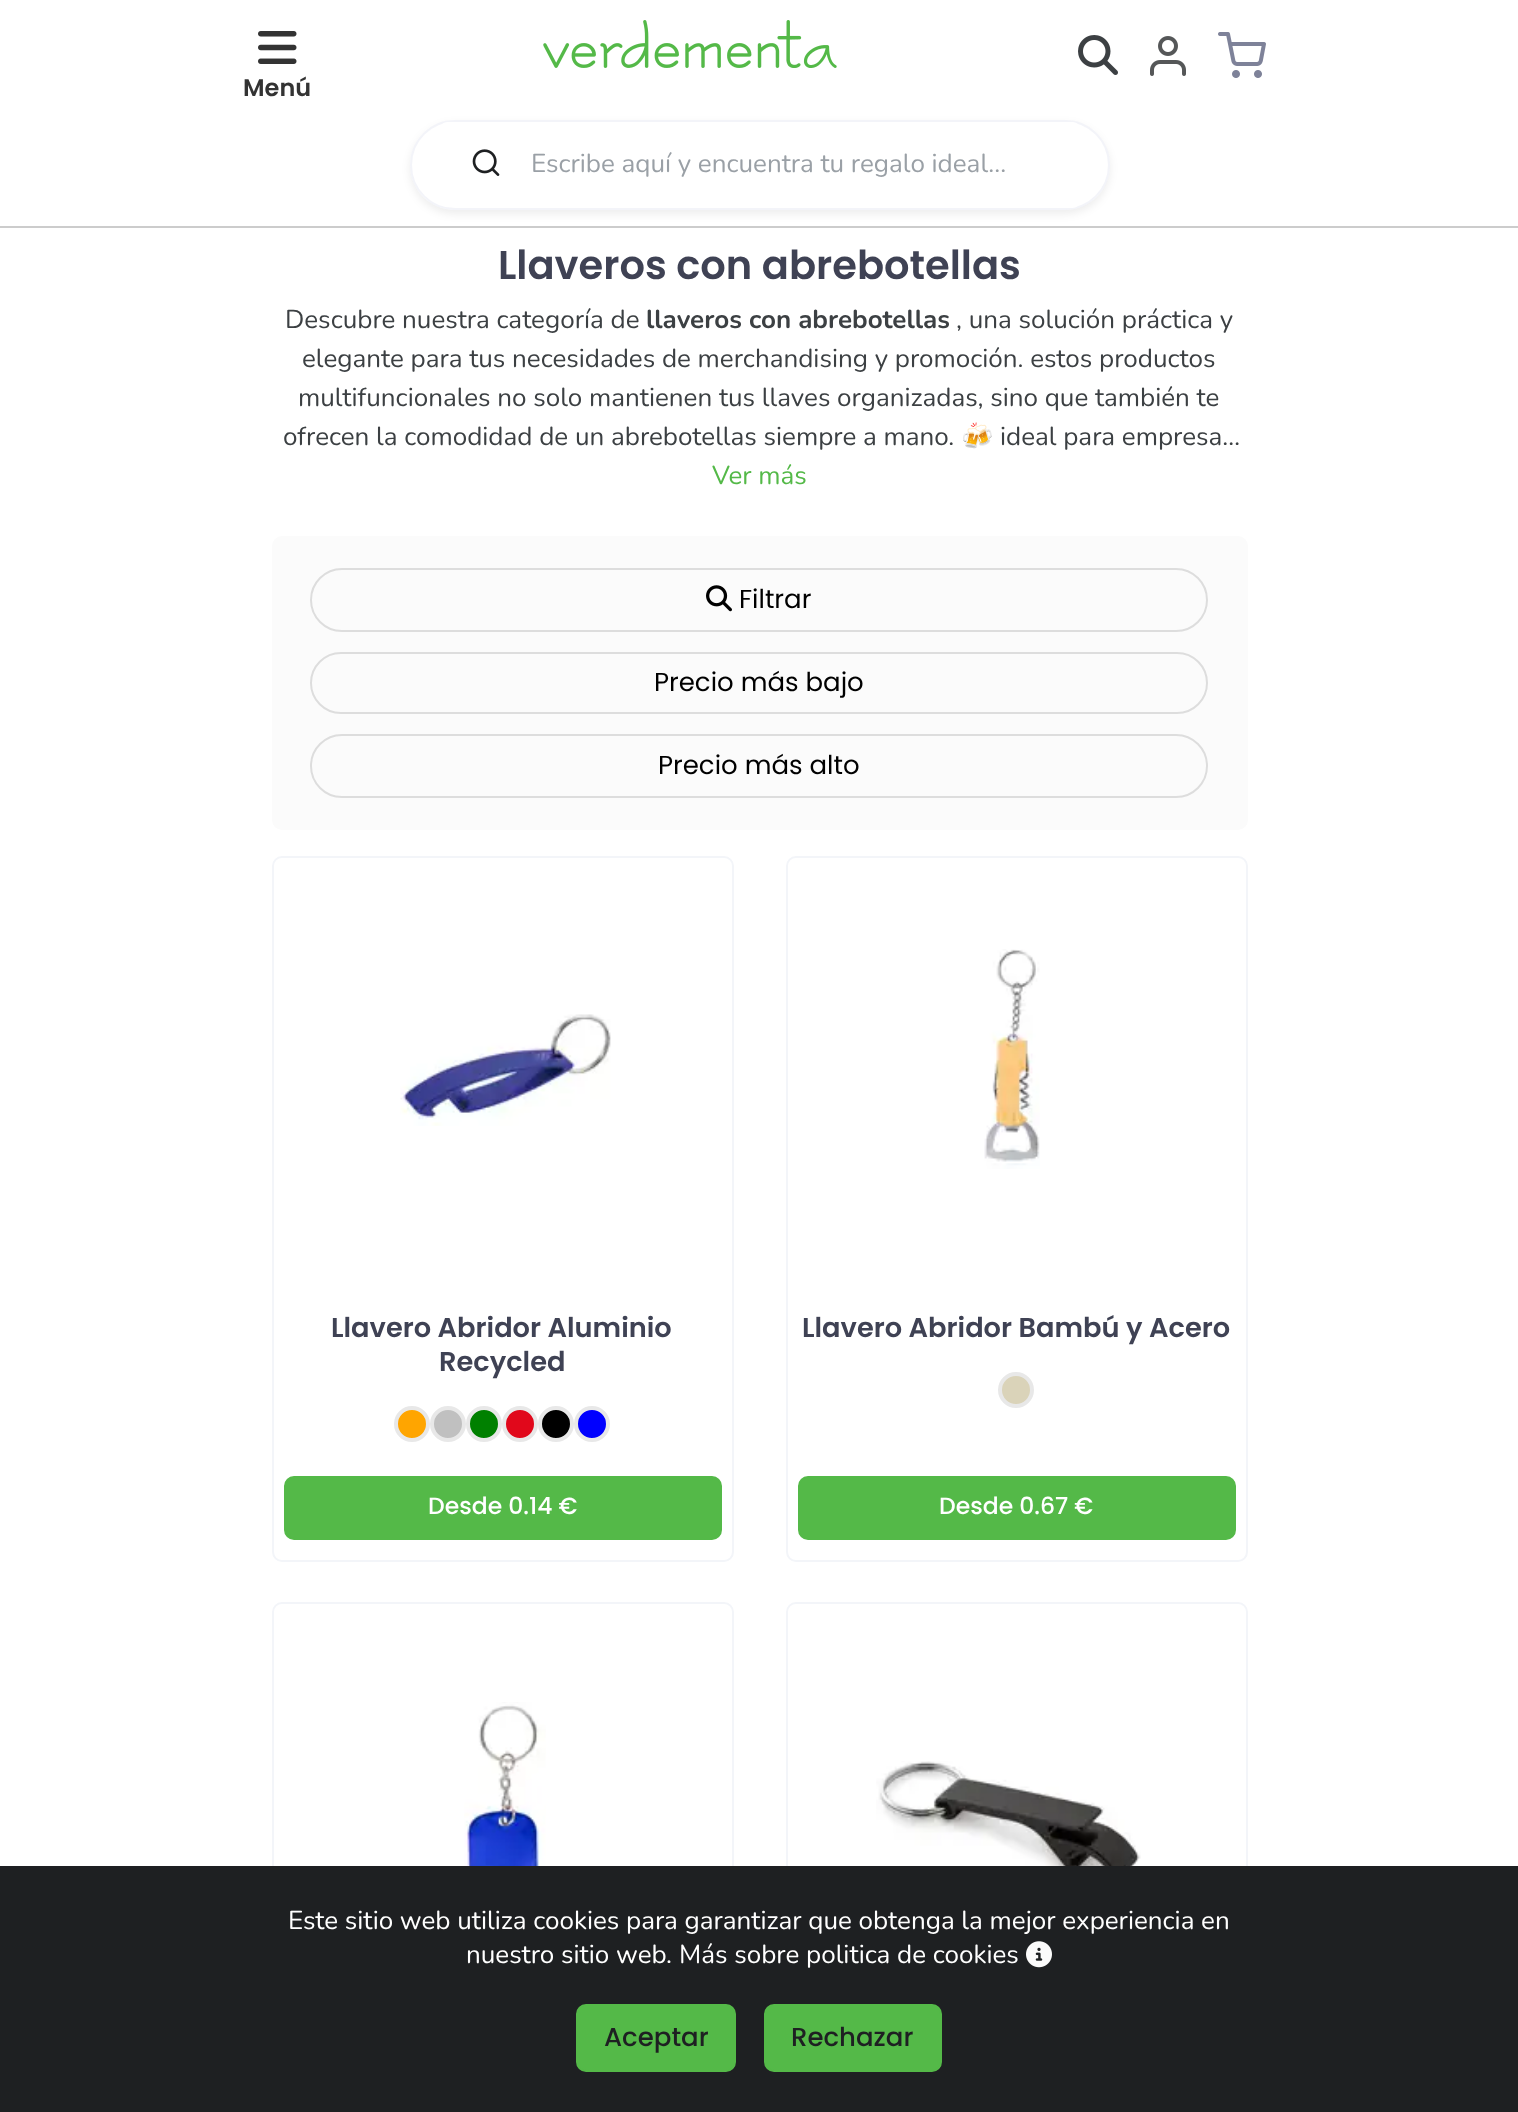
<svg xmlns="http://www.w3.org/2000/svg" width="1518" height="2112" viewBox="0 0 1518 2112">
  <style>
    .t1 { font: 600 24px Poppins; fill: #333; }
    .t2 { font: 26px Nunito; fill: #9aa0a6; }
    .t3 { font: 600 40px Poppins; fill: #3f4254; }
    .t4 { font: 26px Nunito; fill: #3c4043; }
    .t5 { font: bold 26px Nunito; fill: #3c4043; }
    .t6 { font: 26px Noto Color Emoji; fill: #3c4043; }
    .t7 { font: 26px Nunito; fill: #54b948; }
    .t8 { font: 26px Poppins; fill: #000; }
    .t9 { font: 600 27.25px Poppins; fill: #3f4254; }
    .t10 { font: 500 23.5px Poppins; fill: #fff; }
    .t11 { font: 26px Nunito; fill: #fff; }
    .t12 { font: 500 26px Poppins; fill: #1e2022; }
  </style>
  <defs>
    <clipPath id="clip1"><path d="M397 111H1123V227H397ZM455 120H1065C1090 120 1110 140 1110 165C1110 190 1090 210 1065 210H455C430 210 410 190 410 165C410 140 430 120 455 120Z" clip-rule="evenodd"/></clipPath>
  </defs>
  <rect width="100%" height="100%" fill="#fff"/>
  <rect x="0" y="226" width="1518" height="2" fill="#ccc"/>
  <image x="543" y="20" width="294" height="48" href="images/1.png"/>
  <image x="1078" y="35" width="40" height="40" href="images/2.png"/>
  <image x="1150" y="36" width="36" height="40" href="images/3.png"/>
  <image x="1218" y="32" width="48" height="46" href="images/4.png"/>
  <image x="258" y="31" width="39" height="33" href="images/5.png"/>
  <text x="243" y="96" class="t1">Menú</text>
  <g clip-path="url(#clip1)">
    <rect x="410" y="124" width="700" height="90" rx="45" fill="#00000012" filter="blur(4px)"/>
  </g>
  <rect x="411" y="121" width="698" height="88" rx="44" fill="none" stroke="#e7eaf380" stroke-width="2"/>
  <path d="M448 122H534V202H448C442.5 202 438 197.5 438 192V132C438 126.5 442.5 122 448 122Z" fill="#fff"/>
  <image x="472" y="149" width="28" height="27" href="images/6.png"/>
  <path d="M532 122H1072C1077.5 122 1082 126.5 1082 132V198C1082 203.5 1077.5 208 1072 208H532Z" fill="#fff"/>
  <text x="531" y="172" class="t2">Escribe aquí y encuentra tu regalo ideal...</text>
  <text x="498" y="279" class="t3">Llaveros con abrebotellas</text>
  <text x="285" y="328" class="t4">Descubre nuestra categoría de</text>
  <text x="646" y="328" class="t5">llaveros con abrebotellas</text>
  <text x="956" y="328" class="t4">, una solución práctica y</text>
  <text x="302" y="367" class="t4">elegante para tus necesidades de merchandising y promoción. estos productos</text>
  <text x="298" y="406" class="t4">multifuncionales no solo mantienen tus llaves organizadas, sino que también te</text>
  <text x="283" y="445" class="t4">ofrecen la comodidad de un abrebotellas siempre a mano.</text>
  <text x="961" y="445" class="t6">🍻</text>
  <text x="1000" y="445" class="t4">ideal para empresa…</text>
  <text x="712" y="484" class="t7">Ver más</text>
  <rect x="272" y="536" width="976" height="294" rx="10" fill="#fbfbfb"/>
  <rect x="311" y="569" width="896" height="62" rx="31" fill="none" stroke="#ddd" stroke-width="2"/>
  <image x="706" y="585" width="26" height="27" href="images/7.png"/>
  <text x="739" y="608" class="t8">Filtrar</text>
  <rect x="311" y="653" width="896" height="60" rx="30" fill="none" stroke="#ddd" stroke-width="2"/>
  <text x="654" y="691" class="t8">Precio más bajo</text>
  <rect x="311" y="735" width="896" height="62" rx="31" fill="none" stroke="#ddd" stroke-width="2"/>
  <text x="658" y="774" class="t8">Precio más alto</text>
  <rect x="273" y="857" width="460" height="704" rx="9" fill="none" stroke="#f3f5f9" stroke-width="2"/>
  <image x="400" y="1014" width="211" height="112" href="images/8.png"/>
  <text x="331" y="1337" class="t9">Llavero Abridor Aluminio</text>
  <text x="439" y="1371" class="t9">Recycled</text>
  <circle cx="412" cy="1424" r="16" fill="#ffa500" stroke="#e8e8e8" stroke-width="4"/>
  <circle cx="448" cy="1424" r="16" fill="#c0c0c0" stroke="#e8e8e8" stroke-width="4"/>
  <circle cx="484" cy="1424" r="16" fill="#008000" stroke="#e8e8e8" stroke-width="4"/>
  <circle cx="520" cy="1424" r="16" fill="#e1081b" stroke="#e8e8e8" stroke-width="4"/>
  <circle cx="556" cy="1424" r="16" fill="#000" stroke="#e8e8e8" stroke-width="4"/>
  <circle cx="592" cy="1424" r="16" fill="#00f" stroke="#e8e8e8" stroke-width="4"/>
  <rect x="285" y="1477" width="436" height="62" rx="9" fill="#54b948" stroke="#54b948" stroke-width="2"/>
  <text x="428" y="1514" class="t10">Desde 0.14 €</text>
  <rect x="787" y="857" width="460" height="704" rx="9" fill="none" stroke="#f3f5f9" stroke-width="2"/>
  <image x="984" y="949" width="56" height="220" href="images/9.png"/>
  <text x="802" y="1337" class="t9">Llavero Abridor Bambú y Acero</text>
  <circle cx="1016" cy="1390" r="16" fill="#dad3b9" stroke="#e8e8e8" stroke-width="4"/>
  <rect x="799" y="1477" width="436" height="62" rx="9" fill="#54b948" stroke="#54b948" stroke-width="2"/>
  <text x="939" y="1514" class="t10">Desde 0.67 €</text>
  <rect x="273" y="1603" width="460" height="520" rx="9" fill="none" stroke="#f3f5f9" stroke-width="2"/>
  <image x="464" y="1702" width="82" height="164" href="images/10.png"/>
  <rect x="787" y="1603" width="460" height="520" rx="9" fill="none" stroke="#f3f5f9" stroke-width="2"/>
  <image x="876" y="1761" width="265" height="105" href="images/11.png"/>
  <rect x="0" y="1866" width="1518" height="246" fill="#1e2022"/>
  <text x="288" y="1929" class="t11">Este sitio web utiliza cookies para garantizar que obtenga la mejor experiencia en</text>
  <text x="466" y="1963" class="t11">nuestro sitio web.</text>
  <text x="679" y="1963" class="t11">Más sobre politica de cookies</text>
  <image x="1026" y="1941" width="26" height="27" href="images/12.png"/>
  <rect x="577" y="2005" width="158" height="66" rx="9" fill="#54b948" stroke="#54b948" stroke-width="2"/>
  <text x="604" y="2046" class="t12">Aceptar</text>
  <rect x="765" y="2005" width="176" height="66" rx="9" fill="#54b948" stroke="#54b948" stroke-width="2"/>
  <text x="791" y="2046" class="t12">Rechazar</text>
</svg>
